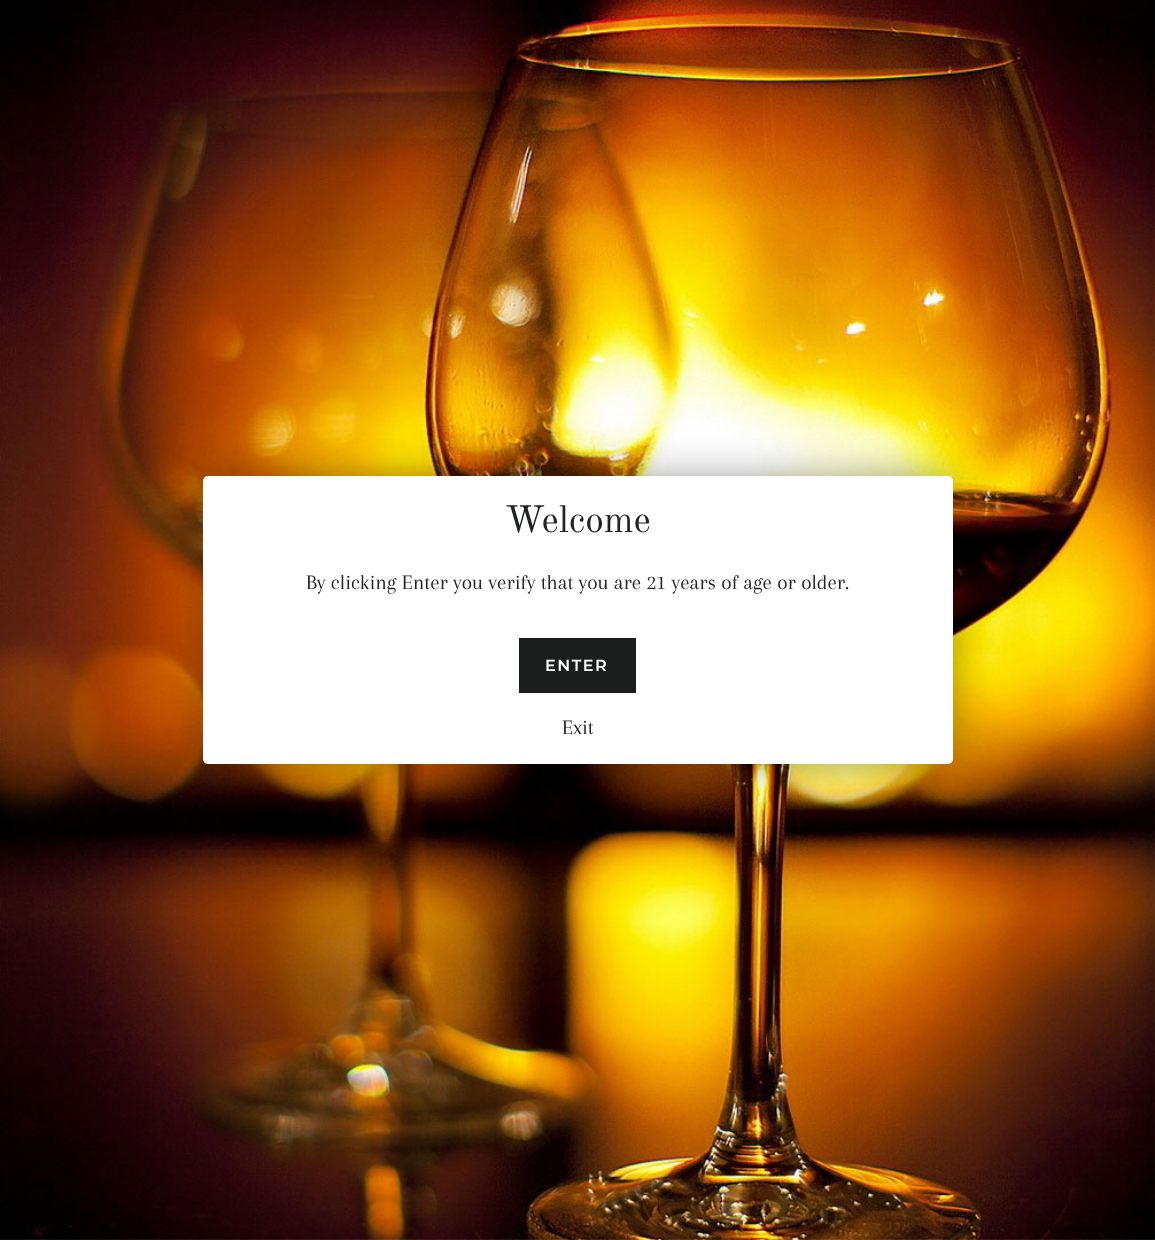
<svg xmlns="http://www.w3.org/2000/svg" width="1155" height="1240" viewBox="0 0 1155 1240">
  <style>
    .t1 { font: 37.5px Old Standard TT; fill: #222323; }
    .t2 { font: 21.25px Arapey; fill: #222323; }
    .t3 { font: 600 16px Montserrat; letter-spacing: 1.5px; fill: #fff; }
  </style>
  <rect width="100%" height="100%" fill="#fff"/>
  <image x="0" y="0" width="1155" height="1240" href="images/1.png"/>
  <rect x="203" y="476" width="750" height="288" rx="5" fill="#00000059" filter="blur(19px)"/>
  <rect x="203" y="476" width="750" height="288" rx="5" fill="#fff"/>
  <text x="505" y="532" class="t1">Welcome</text>
  <text x="306" y="589" class="t2">By clicking Enter you verify that you are 21 years of age or older.</text>
  <rect x="519" y="638" width="117" height="55" fill="#1c1d1d"/>
  <text x="545" y="671" class="t3">ENTER</text>
  <text x="562" y="734" class="t2">Exit</text>
</svg>
